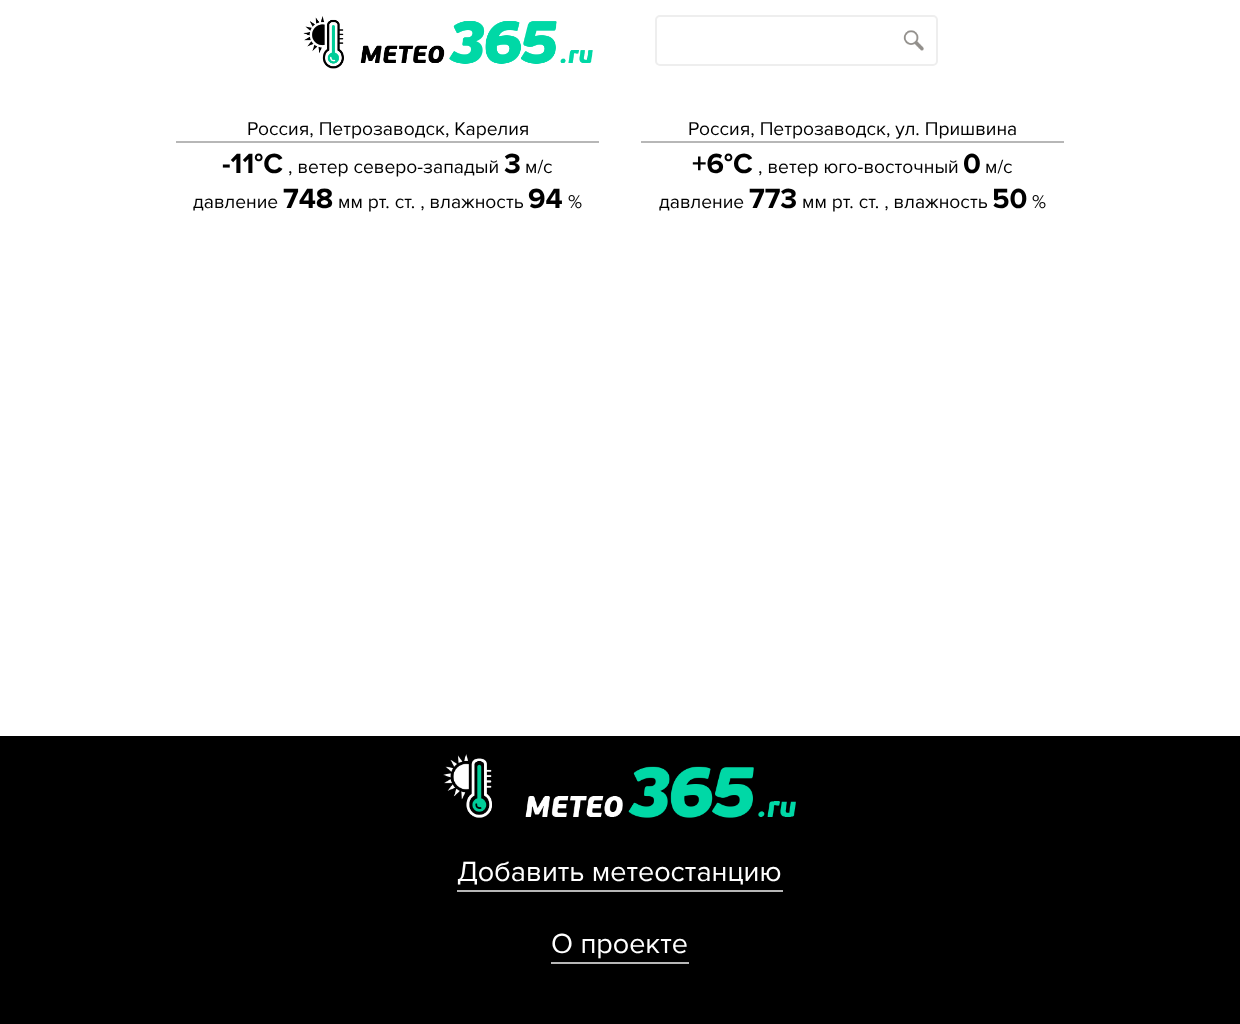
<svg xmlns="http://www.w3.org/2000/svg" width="1240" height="1024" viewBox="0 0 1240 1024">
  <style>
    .t1 { font: 19.25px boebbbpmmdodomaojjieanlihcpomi; fill: #000; }
    .t2 { font: bold 28.75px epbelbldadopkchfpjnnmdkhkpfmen; fill: #000; }
    .t3 { font: 28.75px boebbbpmmdodomaojjieanlihcpomi; fill: #fff; }
  </style>
  <rect width="100%" height="100%" fill="#fff"/>
  <image x="303" y="16" width="290" height="53" href="images/1.png"/>
  <rect x="656" y="16" width="281" height="49" rx="4" fill="none" stroke="#eee" stroke-width="2"/>
  <image x="903" y="30" width="21" height="21" href="images/2.png"/>
  <rect x="176" y="141" width="423" height="2" fill="#b7b7b7"/>
  <text x="247" y="135" class="t1">Россия, Петрозаводск, Карелия</text>
  <text x="222" y="173" class="t2">-11°C</text>
  <text x="288" y="173" class="t1">, ветер северо-западый</text>
  <text x="504" y="173" class="t2">3</text>
  <text x="525" y="173" class="t1">м/с</text>
  <text x="193" y="208" class="t1">давление</text>
  <text x="283" y="208" class="t2">748</text>
  <text x="338" y="208" class="t1">мм рт. ст. , влажность</text>
  <text x="528" y="208" class="t2">94</text>
  <text x="568" y="208" class="t1">%</text>
  <rect x="641" y="141" width="423" height="2" fill="#b7b7b7"/>
  <text x="688" y="135" class="t1">Россия, Петрозаводск, ул. Пришвина</text>
  <text x="692" y="173" class="t2">+6°C</text>
  <text x="758" y="173" class="t1">, ветер юго-восточный</text>
  <text x="963" y="173" class="t2">0</text>
  <text x="985" y="173" class="t1">м/с</text>
  <text x="659" y="208" class="t1">давление</text>
  <text x="749" y="208" class="t2">773</text>
  <text x="802" y="208" class="t1">мм рт. ст. , влажность</text>
  <text x="992" y="208" class="t2">50</text>
  <text x="1032" y="208" class="t1">%</text>
  <rect x="0" y="736" width="1240" height="288" fill="#000"/>
  <image x="443" y="754" width="353" height="64" href="images/3.png"/>
  <rect x="457" y="890" width="326" height="2" fill="#b7b7b7"/>
  <text x="457" y="881" class="t3">Добавить метеостанцию</text>
  <rect x="551" y="962" width="138" height="2" fill="#b7b7b7"/>
  <text x="551" y="953" class="t3">О проекте</text>
</svg>
